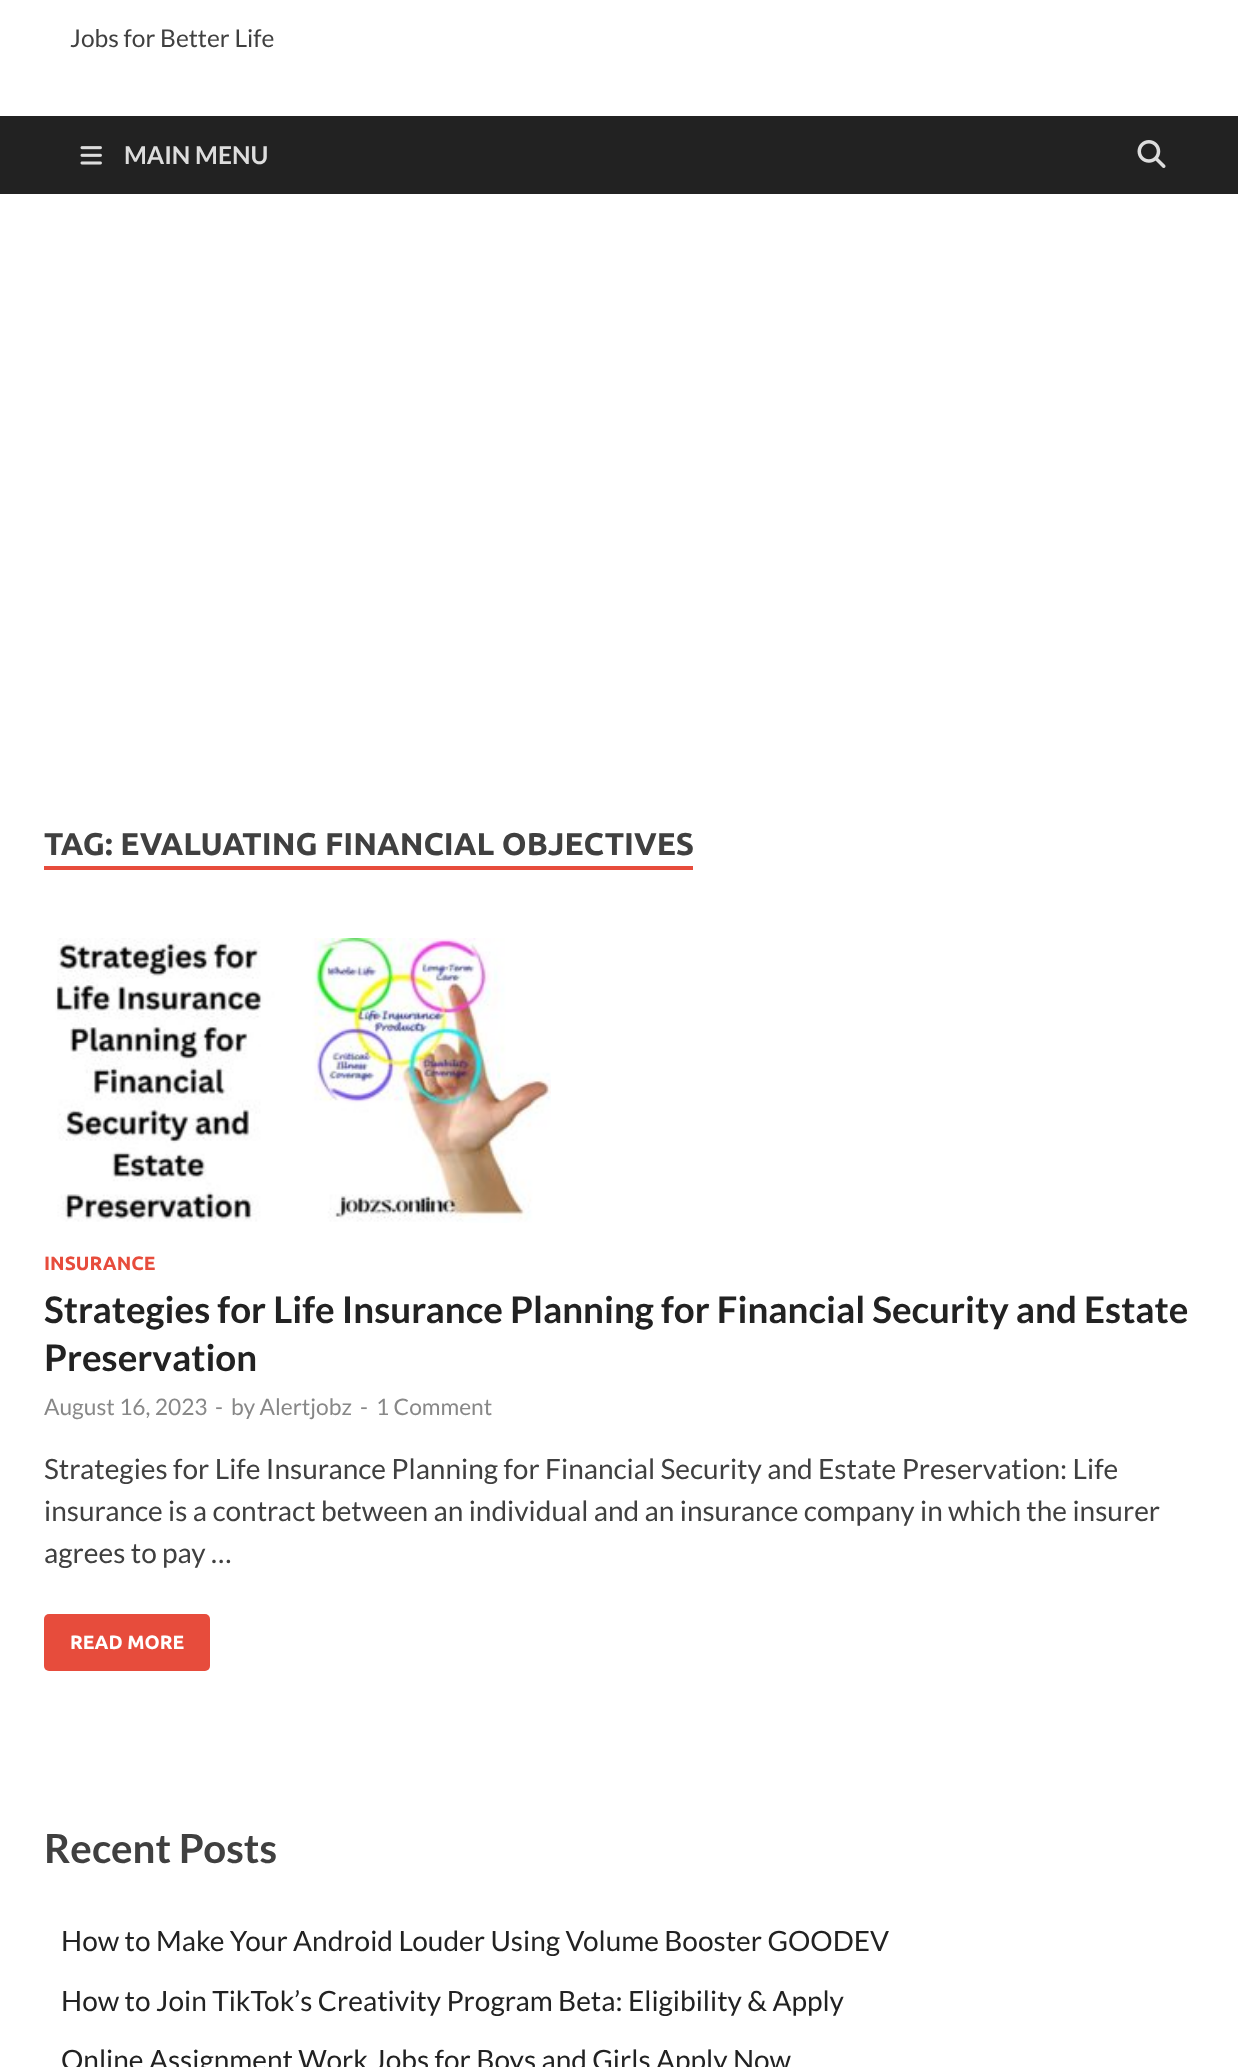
<svg xmlns="http://www.w3.org/2000/svg" width="1238" height="2067" viewBox="0 0 1238 2067">
  <style>
    .t1 { font: 24.5px Lato; fill: #404040; }
    .t2 { font: bold 24.5px Lato; fill: #ddd; }
    .t3 { font: bold 31.5px Ubuntu; fill: #404040; }
    .t4 { font: bold 19.25px Ubuntu; fill: #e74c3c; }
    .t5 { font: bold 36.75px Lato; fill: #222; }
    .t6 { font: 22.75px Lato; fill: #888; }
    .t7 { font: 28px Lato; fill: #404040; }
    .t8 { font: bold 19.25px Ubuntu; fill: #fff; }
    .t9 { font: bold 40.25px Lato; fill: #404040; }
    .t10 { font: 28px Lato; fill: #222; }
  </style>
  <rect width="100%" height="100%" fill="#fff"/>
  <text x="70" y="47" class="t1">Jobs for Better Life</text>
  <rect x="0" y="116" width="1238" height="78" fill="#222"/>
  <image x="80" y="146" width="22" height="19" href="images/1.png"/>
  <text x="124" y="164" class="t2">MAIN MENU</text>
  <image x="1137" y="140" width="29" height="28" href="images/2.png"/>
  <text x="44" y="855" class="t3">TAG: EVALUATING FINANCIAL OBJECTIVES</text>
  <rect x="44" y="866" width="649" height="4" fill="#e74c3c"/>
  <image x="55" y="938" width="496" height="285" href="images/3.png"/>
  <text x="44" y="1270" class="t4">INSURANCE</text>
  <text x="44" y="1323" class="t5">Strategies for Life Insurance Planning for Financial Security and Estate</text>
  <text x="44" y="1371" class="t5">Preservation</text>
  <text x="44" y="1415" class="t6">August 16, 2023</text>
  <text x="215" y="1415" class="t6">-</text>
  <text x="231" y="1415" class="t6">by Alertjobz</text>
  <text x="360" y="1415" class="t6">-</text>
  <text x="376" y="1415" class="t6">1 Comment</text>
  <text x="44" y="1479" class="t7">Strategies for Life Insurance Planning for Financial Security and Estate Preservation: Life</text>
  <text x="44" y="1521" class="t7">insurance is a contract between an individual and an insurance company in which the insurer</text>
  <text x="44" y="1563" class="t7">agrees to pay …</text>
  <rect x="44" y="1614" width="166" height="57" rx="5" fill="#e74c3c"/>
  <text x="70" y="1649" class="t8">READ MORE</text>
  <text x="44" y="1863" class="t9">Recent Posts</text>
  <text x="61" y="1951" class="t10">How to Make Your Android Louder Using Volume Booster GOODEV</text>
  <text x="61" y="2011" class="t10">How to Join TikTok’s Creativity Program Beta: Eligibility &amp; Apply</text>
  <text x="61" y="2070" class="t10">Online Assignment Work Jobs for Boys and Girls Apply Now</text>
</svg>
